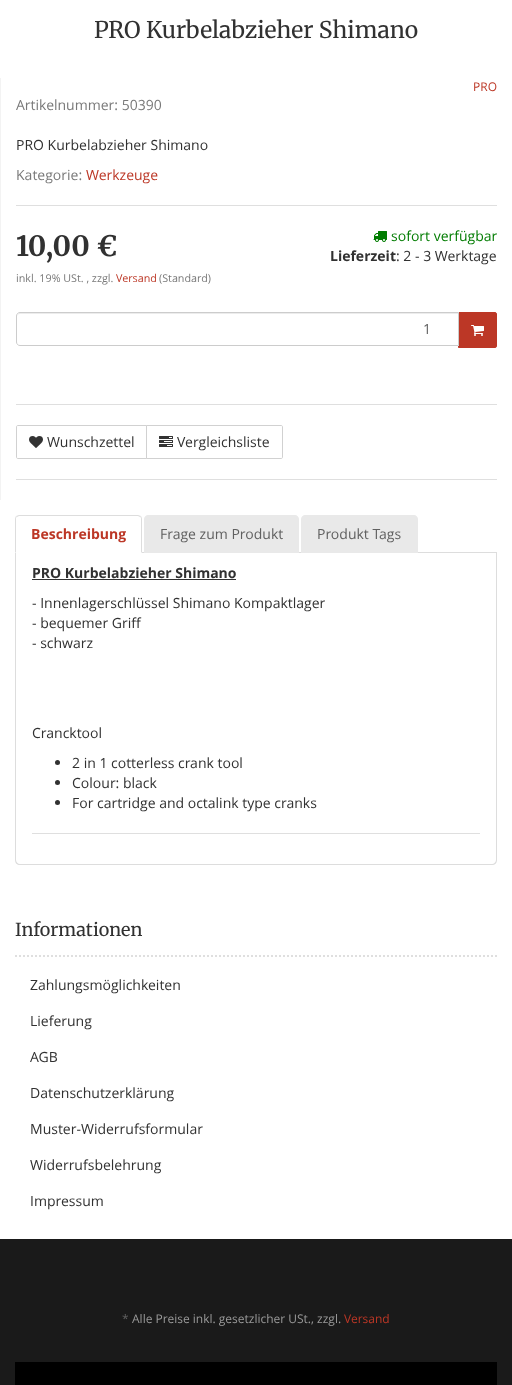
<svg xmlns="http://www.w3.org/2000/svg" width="512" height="1385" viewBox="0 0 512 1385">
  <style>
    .t1 { font: 23px Merriweather; fill: #313131; }
    .t2 { font: 12px Open Sans; fill: #bc3726; }
    .t3 { font: 14px Open Sans; fill: #797979; }
    .t4 { font: 14px Open Sans; fill: #313131; }
    .t5 { font: 14px Open Sans; fill: #bc3726; }
    .t6 { font: bold 28px Merriweather; fill: #313131; }
    .t7 { font: 10.75px Open Sans; fill: #797979; }
    .t8 { font: 10.75px Open Sans; fill: #bc3726; }
    .t9 { font: 14px Open Sans; fill: #007c00; }
    .t10 { font: bold 14px Open Sans; fill: #313131; }
    .t11 { font: 14px Open Sans; fill: #606060; }
    .t12 { font: bold 14px Open Sans; fill: #bc3726; }
    .t13 { font: 18px 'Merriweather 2'; fill: #313131; }
    .t14 { font: 12px Open Sans; fill: #606060; }
    .t15 { font: 12px Open Sans; fill: #9a9a9a; }
  </style>
  <rect width="100%" height="100%" fill="#fff"/>
  <text x="94" y="38" class="t1">PRO Kurbelabzieher Shimano</text>
  <rect x="0" y="78" width="1" height="422" fill="#f3f3f3"/>
  <text x="473" y="91" class="t2">PRO</text>
  <text x="16" y="110" class="t3">Artikelnummer: 50390</text>
  <text x="16" y="150" class="t4">PRO Kurbelabzieher Shimano</text>
  <text x="16" y="180" class="t3">Kategorie:</text>
  <text x="86" y="180" class="t5">Werkzeuge</text>
  <rect x="16" y="205" width="481" height="1" fill="#dfdfdf"/>
  <text x="16" y="256" class="t6">10,00 €</text>
  <text x="16" y="282" class="t7">inkl. 19% USt. , zzgl.</text>
  <text x="116" y="282" class="t8">Versand</text>
  <text x="159" y="282" class="t7">(Standard)</text>
  <image x="373" y="231" width="14" height="11" href="images/1.png"/>
  <text x="391" y="241" class="t9">sofort verfügbar</text>
  <text x="330" y="261" class="t10">Lieferzeit</text>
  <text x="396" y="261" class="t4">: 2 - 3 Werktage</text>
  <path d="M458.5 312.5H495C496 312.5 496.5 313 496.5 314V346C496.5 347 496 347.5 495 347.5H458.5Z" fill="#bc3726" stroke="#bc3726"/>
  <path d="M20 312H459V346H20C18 346 16 344 16 342V316C16 314 18 312 20 312Z" fill="#fff"/>
  <path d="M20 314H458V313H20C18 313 17 315 17 317C17 315 18 314 20 314Z" fill="#ececec"/>
  <path d="M20 312.5H458.5V345.5H20C18 345.5 16.5 344 16.5 342V316C16.5 314 18 312.5 20 312.5Z" fill="none" stroke="#ccc"/>
  <text x="423" y="334" class="t11">1</text>
  <image x="471" y="325" width="13" height="11" href="images/2.png"/>
  <rect x="16" y="404" width="481" height="1" fill="#dfdfdf"/>
  <path d="M18 425.5H146.5V458.5H18C17 458.5 16.5 458 16.5 457V427C16.5 426 17 425.5 18 425.5Z" fill="none" stroke="#d1d1d1"/>
  <image x="29" y="436" width="14" height="12" href="images/3.png"/>
  <text x="47" y="447" class="t4">Wunschzettel</text>
  <path d="M146.5 425.5H281C282 425.5 282.5 426 282.5 427V457C282.5 458 282 458.5 281 458.5H146.5Z" fill="#fff" stroke="#d1d1d1"/>
  <image x="159" y="436" width="14" height="11" href="images/4.png"/>
  <text x="177" y="447" class="t4">Vergleichsliste</text>
  <rect x="16" y="479" width="481" height="1" fill="#dfdfdf"/>
  <rect x="142" y="552" width="355" height="1" fill="#ddd"/>
  <path d="M19 515L16 516L17 517L19 516H138L140 517L141 516L138 515Z" fill="#ddd"/>
  <path d="M142 553V519C142 518 141.5 517 141 516L140 517C141 517 141 518 141 519V552Z" fill="#ddd"/>
  <path d="M15 553L16 552V519C16 518 16 517 17 517L16 516C15.5 517 15 518 15 519Z" fill="#ddd"/>
  <text x="31" y="539" class="t12">Beschreibung</text>
  <path d="M148 515H295C297 515 299 517 299 519V553H144V519C144 517 146 515 148 515Z" fill="#e9e9e9"/>
  <text x="160" y="539" class="t11">Frage zum Produkt</text>
  <path d="M305 515H414C416 515 418 517 418 519V553H301V519C301 517 303 515 305 515Z" fill="#e9e9e9"/>
  <text x="317" y="539" class="t11">Produkt Tags</text>
  <path d="M15 553H497V860C497 863 495 865 492 865H20C17 865 15 863 15 860ZM16 553H496V860C496 862 494 864 492 864H20C18 864 16 862 16 860Z" fill="#ddd" fill-rule="evenodd"/>
  <text x="32" y="578" class="t10">PRO Kurbelabzieher Shimano</text>
  <rect x="32" y="579" width="204" height="1" fill="#313131"/>
  <text x="32" y="608" class="t4">- Innenlagerschlüssel Shimano Kompaktlager</text>
  <text x="32" y="628" class="t4">- bequemer Griff</text>
  <text x="32" y="648" class="t4">- schwarz</text>
  <text x="32" y="738" class="t4">Crancktool</text>
  <circle cx="57.5" cy="762.5" r="2.5" fill="#313131"/>
  <text x="72" y="768" class="t4">2 in 1 cotterless crank tool</text>
  <circle cx="57.5" cy="782.5" r="2.5" fill="#313131"/>
  <text x="72" y="788" class="t4">Colour: black</text>
  <circle cx="57.5" cy="802.5" r="2.5" fill="#313131"/>
  <text x="72" y="808" class="t4">For cartridge and octalink type cranks</text>
  <rect x="32" y="833" width="448" height="1" fill="#dfdfdf"/>
  <path d="M15 956H497" fill="none" stroke="#dfdfdf" stroke-width="2" stroke-dasharray="2 2"/>
  <text x="15" y="936" class="t13">Informationen</text>
  <text x="30" y="990" class="t4">Zahlungsmöglichkeiten</text>
  <text x="30" y="1026" class="t4">Lieferung</text>
  <text x="30" y="1062" class="t4">AGB</text>
  <text x="30" y="1098" class="t4">Datenschutzerklärung</text>
  <text x="30" y="1134" class="t4">Muster-Widerrufsformular</text>
  <text x="30" y="1170" class="t4">Widerrufsbelehrung</text>
  <text x="30" y="1206" class="t4">Impressum</text>
  <rect x="0" y="1239" width="512" height="146" fill="#1a1a1a"/>
  <text x="122" y="1323" class="t14">*</text>
  <text x="132" y="1323" class="t15">Alle Preise inkl. gesetzlicher USt., zzgl.</text>
  <text x="344" y="1323" class="t2">Versand</text>
  <rect x="15" y="1362" width="482" height="23" fill="#000"/>
</svg>
